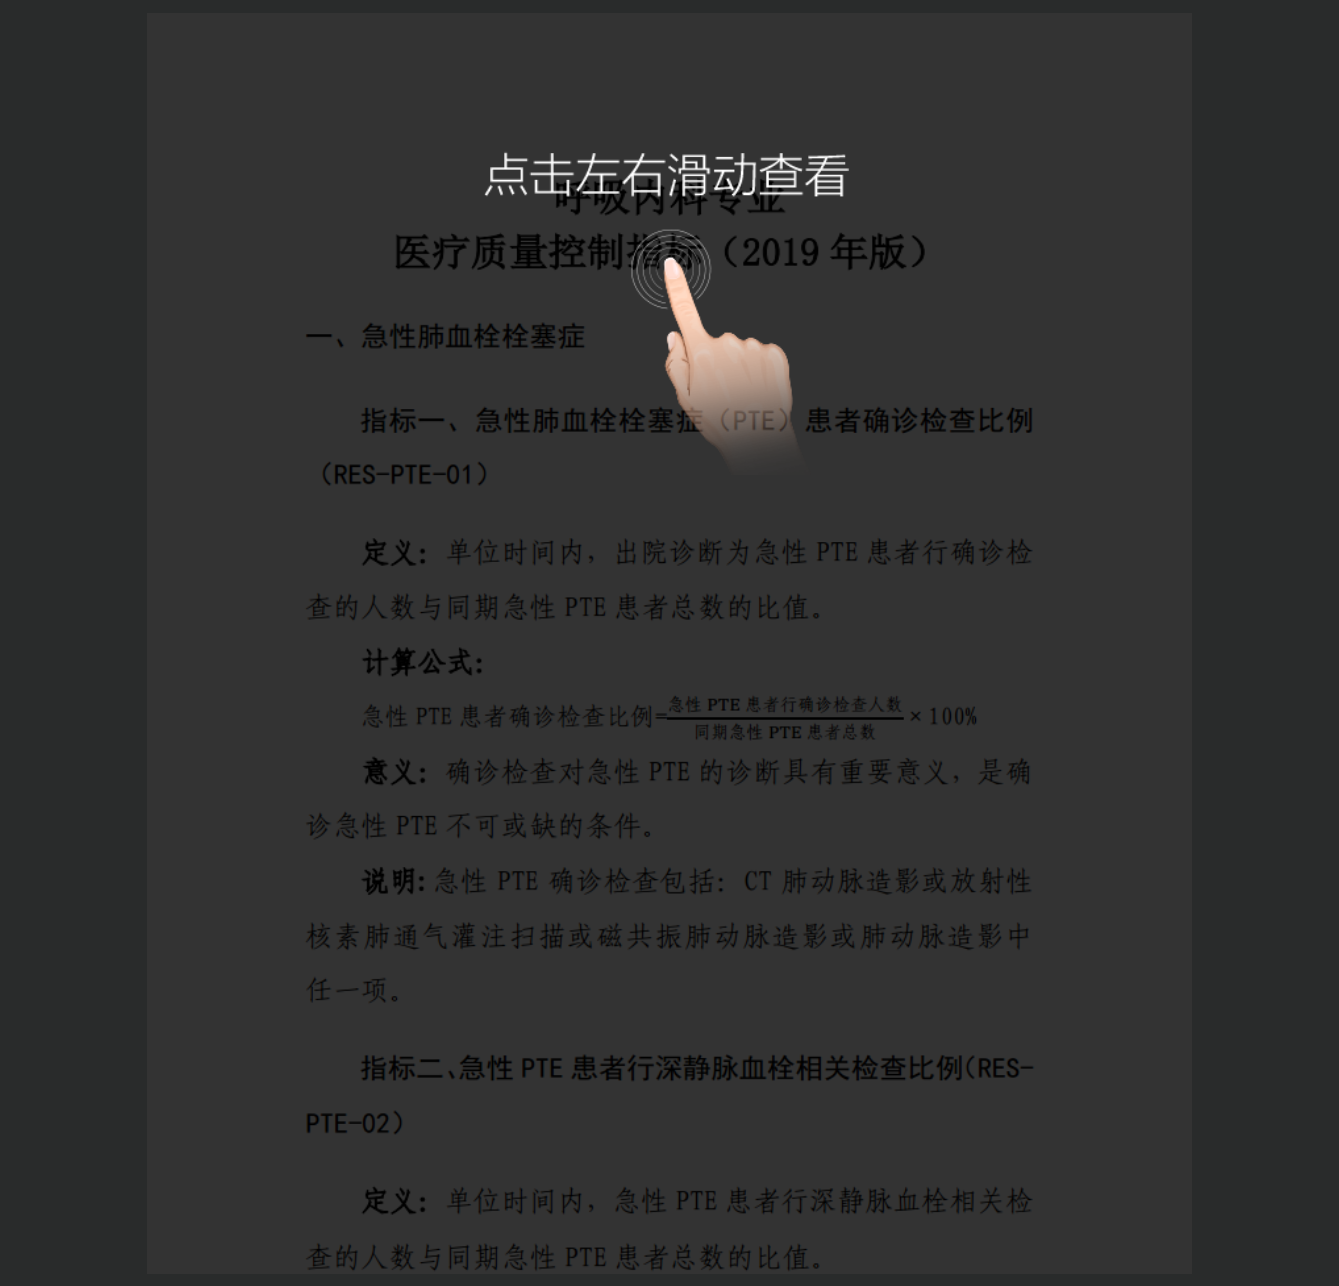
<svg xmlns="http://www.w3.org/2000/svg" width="1339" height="1286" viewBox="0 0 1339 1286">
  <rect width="100%" height="100%" fill="#292b2b"/>
  <image x="147" y="13" width="1045" height="1261" href="images/1.png"/>
  <image x="484" y="151" width="366" height="324" href="images/2.png"/>
</svg>
